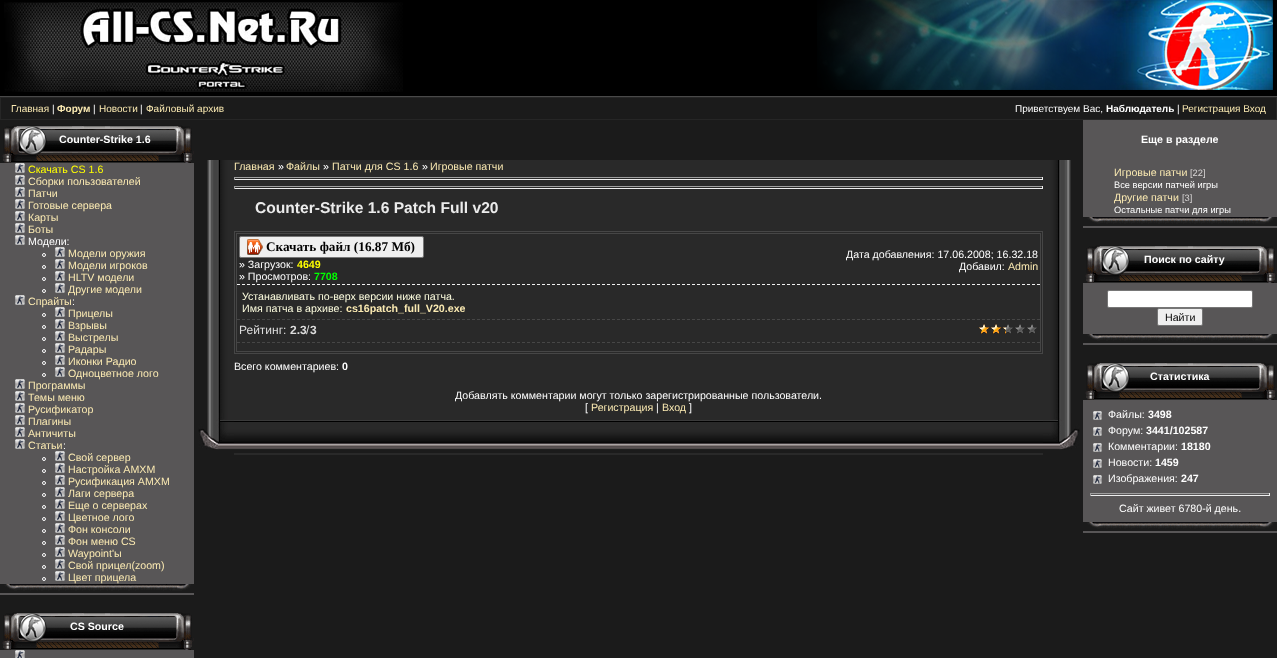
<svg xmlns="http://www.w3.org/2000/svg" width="1277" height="658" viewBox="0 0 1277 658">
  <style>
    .t1 { font: 10px Liberation Sans; fill: #fbeab2; }
    .t2 { font: 10px Liberation Sans; fill: #fff; }
    .t3 { font: bold 10px Liberation Sans; fill: #fbeab2; }
    .t4 { font: bold 10px Liberation Sans; fill: #fff; }
    .t5 { font: bold 10.65px Liberation Sans; fill: #fff; }
    .t6 { font: 10.65px Liberation Sans; fill: #ff0; }
    .t7 { font: 10.65px Liberation Sans; fill: #fbeab2; }
    .t8 { font: 10.65px Liberation Sans; fill: #fff; }
    .t9 { font: bold 15.6px Liberation Sans; fill: #ebebeb; }
    .t10 { font: bold 13.25px Liberation Serif; fill: #000; }
    .t11 { font: bold 10.65px Liberation Sans; fill: #ff0; }
    .t12 { font: bold 10.65px Liberation Sans; fill: #0f0; }
    .t13 { font: 10.65px Liberation Sans; fill: #ffffe0; }
    .t14 { font: bold 10.65px Liberation Sans; fill: #fbeab2; }
    .t15 { font: 12px Liberation Sans; fill: #ddd; }
    .t16 { font: bold 12px Liberation Sans; fill: #ddd; }
    .t17 { font: 9.3px Liberation Sans; fill: #d8d5d5; }
    .t18 { font: 9.3px Liberation Sans; fill: #fff; }
    .t19 { font: 10.65px Liberation Sans; fill: #000; }
  </style>
  <rect width="100%" height="100%" fill="#1b1b1b"/>
  <rect x="0" y="0" width="1277" height="96" fill="#000"/>
  <rect x="0" y="96" width="1277" height="1" fill="#494949"/>
  <image x="4" y="2" width="399" height="90" href="images/1.png"/>
  <image x="817" y="0" width="456" height="90" href="images/2.png"/>
  <rect x="0.5" y="97.5" width="1276" height="22" fill="none" stroke="#262626"/>
  <text x="11" y="112" class="t1">Главная</text>
  <text x="52" y="112" class="t2">|</text>
  <text x="57" y="112" class="t3">Форум</text>
  <text x="93" y="112" class="t2">|</text>
  <text x="99" y="112" class="t1">Новости</text>
  <text x="140" y="112" class="t2">|</text>
  <text x="146" y="112" class="t1">Файловый архив</text>
  <text x="1015" y="112" class="t2">Приветствуем Вас,</text>
  <text x="1106" y="112" class="t4">Наблюдатель</text>
  <text x="1177" y="112" class="t2">|</text>
  <text x="1182" y="112" class="t1">Регистрация Вход</text>
  <rect x="0" y="163" width="194" height="432" fill="#585657"/>
  <image x="0" y="120" width="194" height="43" href="images/3.png"/>
  <text x="59" y="143" class="t5">Counter-Strike 1.6</text>
  <image x="15" y="163" width="10" height="10" href="images/4.png"/>
  <text x="28" y="173" class="t6">Скачать CS 1.6</text>
  <image x="15" y="175" width="10" height="10" href="images/4.png"/>
  <text x="28" y="185" class="t7">Сборки пользователей</text>
  <image x="15" y="187" width="10" height="10" href="images/4.png"/>
  <text x="28" y="197" class="t7">Патчи</text>
  <image x="15" y="199" width="10" height="10" href="images/4.png"/>
  <text x="28" y="209" class="t7">Готовые сервера</text>
  <image x="15" y="211" width="10" height="10" href="images/4.png"/>
  <text x="28" y="221" class="t7">Карты</text>
  <image x="15" y="223" width="10" height="10" href="images/4.png"/>
  <text x="28" y="233" class="t7">Боты</text>
  <image x="15" y="235" width="10" height="10" href="images/4.png"/>
  <text x="28" y="245" class="t8">Модели:</text>
  <circle cx="44" cy="255" r="1.5" fill="none" stroke="#fff"/>
  <image x="55" y="247" width="10" height="10" href="images/4.png"/>
  <text x="68" y="257" class="t7">Модели оружия</text>
  <circle cx="44" cy="267" r="1.5" fill="none" stroke="#fff"/>
  <image x="55" y="259" width="10" height="10" href="images/4.png"/>
  <text x="68" y="269" class="t7">Модели игроков</text>
  <circle cx="44" cy="279" r="1.5" fill="none" stroke="#fff"/>
  <image x="55" y="271" width="10" height="10" href="images/4.png"/>
  <text x="68" y="281" class="t7">HLTV модели</text>
  <circle cx="44" cy="291" r="1.5" fill="none" stroke="#fff"/>
  <image x="55" y="283" width="10" height="10" href="images/4.png"/>
  <text x="68" y="293" class="t7">Другие модели</text>
  <image x="15" y="295" width="10" height="10" href="images/4.png"/>
  <text x="28" y="305" class="t7">Спрайты</text>
  <text x="72" y="305" class="t8">:</text>
  <circle cx="44" cy="315" r="1.5" fill="none" stroke="#fff"/>
  <image x="55" y="307" width="10" height="10" href="images/4.png"/>
  <text x="68" y="317" class="t7">Прицелы</text>
  <circle cx="44" cy="327" r="1.5" fill="none" stroke="#fff"/>
  <image x="55" y="319" width="10" height="10" href="images/4.png"/>
  <text x="68" y="329" class="t7">Взрывы</text>
  <circle cx="44" cy="339" r="1.5" fill="none" stroke="#fff"/>
  <image x="55" y="331" width="10" height="10" href="images/4.png"/>
  <text x="68" y="341" class="t7">Выстрелы</text>
  <circle cx="44" cy="351" r="1.5" fill="none" stroke="#fff"/>
  <image x="55" y="343" width="10" height="10" href="images/4.png"/>
  <text x="68" y="353" class="t7">Радары</text>
  <circle cx="44" cy="363" r="1.5" fill="none" stroke="#fff"/>
  <image x="55" y="355" width="10" height="10" href="images/4.png"/>
  <text x="68" y="365" class="t7">Иконки Радио</text>
  <circle cx="44" cy="375" r="1.5" fill="none" stroke="#fff"/>
  <image x="55" y="367" width="10" height="10" href="images/4.png"/>
  <text x="68" y="377" class="t7">Одноцветное лого</text>
  <image x="15" y="379" width="10" height="10" href="images/4.png"/>
  <text x="28" y="389" class="t7">Программы</text>
  <image x="15" y="391" width="10" height="10" href="images/4.png"/>
  <text x="28" y="401" class="t7">Темы меню</text>
  <image x="15" y="403" width="10" height="10" href="images/4.png"/>
  <text x="28" y="413" class="t7">Русификатор</text>
  <image x="15" y="415" width="10" height="10" href="images/4.png"/>
  <text x="28" y="425" class="t7">Плагины</text>
  <image x="15" y="427" width="10" height="10" href="images/4.png"/>
  <text x="28" y="437" class="t7">Античиты</text>
  <image x="15" y="439" width="10" height="10" href="images/4.png"/>
  <text x="28" y="449" class="t7">Статьи</text>
  <text x="63" y="449" class="t8">:</text>
  <circle cx="44" cy="459" r="1.5" fill="none" stroke="#fff"/>
  <image x="55" y="451" width="10" height="10" href="images/4.png"/>
  <text x="68" y="461" class="t7">Свой сервер</text>
  <circle cx="44" cy="471" r="1.5" fill="none" stroke="#fff"/>
  <image x="55" y="463" width="10" height="10" href="images/4.png"/>
  <text x="68" y="473" class="t7">Настройка AMXM</text>
  <circle cx="44" cy="483" r="1.5" fill="none" stroke="#fff"/>
  <image x="55" y="475" width="10" height="10" href="images/4.png"/>
  <text x="68" y="485" class="t7">Русификация AMXM</text>
  <circle cx="44" cy="495" r="1.5" fill="none" stroke="#fff"/>
  <image x="55" y="487" width="10" height="10" href="images/4.png"/>
  <text x="68" y="497" class="t7">Лаги сервера</text>
  <circle cx="44" cy="507" r="1.5" fill="none" stroke="#fff"/>
  <image x="55" y="499" width="10" height="10" href="images/4.png"/>
  <text x="68" y="509" class="t7">Еще о серверах</text>
  <circle cx="44" cy="519" r="1.5" fill="none" stroke="#fff"/>
  <image x="55" y="511" width="10" height="10" href="images/4.png"/>
  <text x="68" y="521" class="t7">Цветное лого</text>
  <circle cx="44" cy="531" r="1.5" fill="none" stroke="#fff"/>
  <image x="55" y="523" width="10" height="10" href="images/4.png"/>
  <text x="68" y="533" class="t7">Фон консоли</text>
  <circle cx="44" cy="543" r="1.5" fill="none" stroke="#fff"/>
  <image x="55" y="535" width="10" height="10" href="images/4.png"/>
  <text x="68" y="545" class="t7">Фон меню CS</text>
  <circle cx="44" cy="555" r="1.5" fill="none" stroke="#fff"/>
  <image x="55" y="547" width="10" height="10" href="images/4.png"/>
  <text x="68" y="557" class="t7">Waypoint'ы</text>
  <circle cx="44" cy="567" r="1.5" fill="none" stroke="#fff"/>
  <image x="55" y="559" width="10" height="10" href="images/4.png"/>
  <text x="68" y="569" class="t7">Свой прицел(zoom)</text>
  <circle cx="44" cy="579" r="1.5" fill="none" stroke="#fff"/>
  <image x="55" y="571" width="10" height="10" href="images/4.png"/>
  <text x="68" y="581" class="t7">Цвет прицела</text>
  <image x="0" y="584" width="194" height="9" href="images/5.png"/>
  <rect x="0" y="650" width="194" height="8" fill="#585657"/>
  <image x="0" y="607" width="194" height="43" href="images/3.png"/>
  <text x="70" y="630" class="t5">CS Source</text>
  <image x="15" y="650" width="10" height="8" href="images/6.png"/>
  <image x="207" y="160" width="27" height="253" href="images/7.png"/>
  <rect x="234" y="160" width="809" height="253" fill="#292929"/>
  <text x="234" y="170" class="t7">Главная</text>
  <text x="278" y="170" class="t8">»</text>
  <text x="286" y="170" class="t7">Файлы</text>
  <text x="323" y="170" class="t8">»</text>
  <text x="332" y="170" class="t7">Патчи для CS 1.6</text>
  <text x="422" y="170" class="t8">»</text>
  <text x="430" y="170" class="t7">Игровые патчи</text>
  <rect x="234" y="177" width="809" height="1" fill="#9f9f9f"/>
  <rect x="1042" y="177" width="1" height="3" fill="#eee"/>
  <rect x="234" y="179" width="809" height="1" fill="#eee"/>
  <rect x="234" y="177" width="1" height="3" fill="#9f9f9f"/>
  <rect x="234" y="186" width="809" height="1" fill="#9f9f9f"/>
  <rect x="1042" y="186" width="1" height="3" fill="#eee"/>
  <rect x="234" y="188" width="809" height="1" fill="#eee"/>
  <rect x="234" y="186" width="1" height="3" fill="#9f9f9f"/>
  <text x="255" y="213" class="t9">Counter-Strike 1.6 Patch Full v20</text>
  <rect x="234.5" y="231.5" width="808" height="122" fill="none" stroke="#464646"/>
  <rect x="236.5" y="233.5" width="804" height="118" fill="none" stroke="#464646"/>
  <rect x="239.5" y="236.5" width="184" height="21" rx="1.5" fill="#efefef" stroke="#767676"/>
  <image x="247" y="239" width="16" height="16" href="images/8.png"/>
  <text x="266" y="251" class="t10">Скачать файл (16.87 Мб)</text>
  <text x="239" y="268" class="t8">» Загрузок:</text>
  <text x="297" y="268" class="t11">4649</text>
  <text x="239" y="280" class="t8">» Просмотров:</text>
  <text x="314" y="280" class="t12">7708</text>
  <text x="846" y="258" class="t8">Дата добавления: 17.06.2008; 16.32.18</text>
  <text x="959" y="270" class="t8">Добавил:</text>
  <text x="1008" y="270" class="t7">Admin</text>
  <path d="M237 284.5H1040" fill="none" stroke="#efefef" stroke-dasharray="3 2"/>
  <text x="242" y="300" class="t13">Устанавливать по-верх версии ниже патча.</text>
  <text x="242" y="312" class="t13">Имя патча в архиве:</text>
  <text x="346" y="312" class="t14">cs16patch_full_V20.exe</text>
  <path d="M237 319.5H1040" fill="none" stroke="#464646" stroke-dasharray="3 2"/>
  <text x="239" y="334" class="t15">Рейтинг:</text>
  <text x="290" y="334" class="t16">2.3 3</text>
  <image x="979" y="324" width="58" height="10" href="images/9.png"/>
  <image x="978" y="323" width="28" height="11" href="images/10.png"/>
  <text x="306" y="334" class="t15">/</text>
  <path d="M237 342.5H1040" fill="none" stroke="#464646" stroke-dasharray="3 2"/>
  <text x="234" y="370" class="t8">Всего комментариев:</text>
  <text x="342" y="370" class="t5">0</text>
  <text x="455" y="399" class="t8">Добавлять комментарии могут только зарегистрированные пользователи.</text>
  <image x="234" y="413" width="809" height="42" href="images/13.png"/>
  <text x="585" y="411" class="t8">[</text>
  <text x="591" y="411" class="t7">Регистрация</text>
  <text x="656" y="411" class="t8">|</text>
  <text x="662" y="411" class="t7">Вход</text>
  <text x="689" y="411" class="t8">]</text>
  <image x="1043" y="160" width="28" height="253" href="images/11.png"/>
  <image x="198" y="413" width="36" height="37" href="images/12.png"/>
  <image x="1043" y="413" width="37" height="37" href="images/14.png"/>
  <rect x="1083" y="120" width="194" height="108" fill="#585657"/>
  <text x="1141" y="143" class="t5">Еще в разделе</text>
  <text x="1114" y="176" class="t7">Игровые патчи</text>
  <text x="1190" y="176" class="t17">[22]</text>
  <text x="1114" y="188" class="t18">Все версии патчей игры</text>
  <text x="1114" y="201" class="t7">Другие патчи</text>
  <text x="1182" y="201" class="t17">[3]</text>
  <text x="1114" y="213" class="t18">Остальные патчи для игры</text>
  <image x="1083" y="217" width="194" height="9" href="images/5.png"/>
  <rect x="1083" y="283" width="194" height="62" fill="#585657"/>
  <image x="1083" y="240" width="194" height="43" href="images/3.png"/>
  <text x="1144" y="263" class="t5">Поиск по сайту</text>
  <rect x="1107.5" y="290.5" width="145" height="17" rx="1.5" fill="#fff" stroke="#767676"/>
  <rect x="1157.5" y="308.5" width="45" height="17" rx="1.5" fill="#efefef" stroke="#767676"/>
  <text x="1165" y="321" class="t19">Найти</text>
  <image x="1083" y="334" width="194" height="9" href="images/5.png"/>
  <rect x="1083" y="400" width="194" height="133" fill="#585657"/>
  <image x="1083" y="357" width="194" height="43" href="images/3.png"/>
  <text x="1150" y="380" class="t5">Статистика</text>
  <image x="1093" y="411" width="9" height="9" href="images/15.png"/>
  <text x="1108" y="418" class="t8">Файлы:</text>
  <text x="1148" y="418" class="t5">3498</text>
  <image x="1093" y="427" width="9" height="9" href="images/15.png"/>
  <text x="1108" y="434" class="t8">Форум:</text>
  <text x="1146" y="434" class="t5">3441/102587</text>
  <image x="1093" y="443" width="9" height="9" href="images/15.png"/>
  <text x="1108" y="450" class="t8">Комментарии:</text>
  <text x="1181" y="450" class="t5">18180</text>
  <image x="1093" y="459" width="9" height="9" href="images/15.png"/>
  <text x="1108" y="466" class="t8">Новости:</text>
  <text x="1155" y="466" class="t5">1459</text>
  <image x="1093" y="475" width="9" height="9" href="images/15.png"/>
  <text x="1108" y="482" class="t8">Изображения:</text>
  <text x="1181" y="482" class="t5">247</text>
  <rect x="1090" y="493" width="180" height="1" fill="#9f9f9f"/>
  <rect x="1269" y="493" width="1" height="3" fill="#eee"/>
  <rect x="1090" y="495" width="180" height="1" fill="#eee"/>
  <rect x="1090" y="493" width="1" height="3" fill="#9f9f9f"/>
  <text x="1119" y="512" class="t8">Сайт живет 6780-й день.</text>
  <image x="1083" y="522" width="194" height="9" href="images/5.png"/>
</svg>
